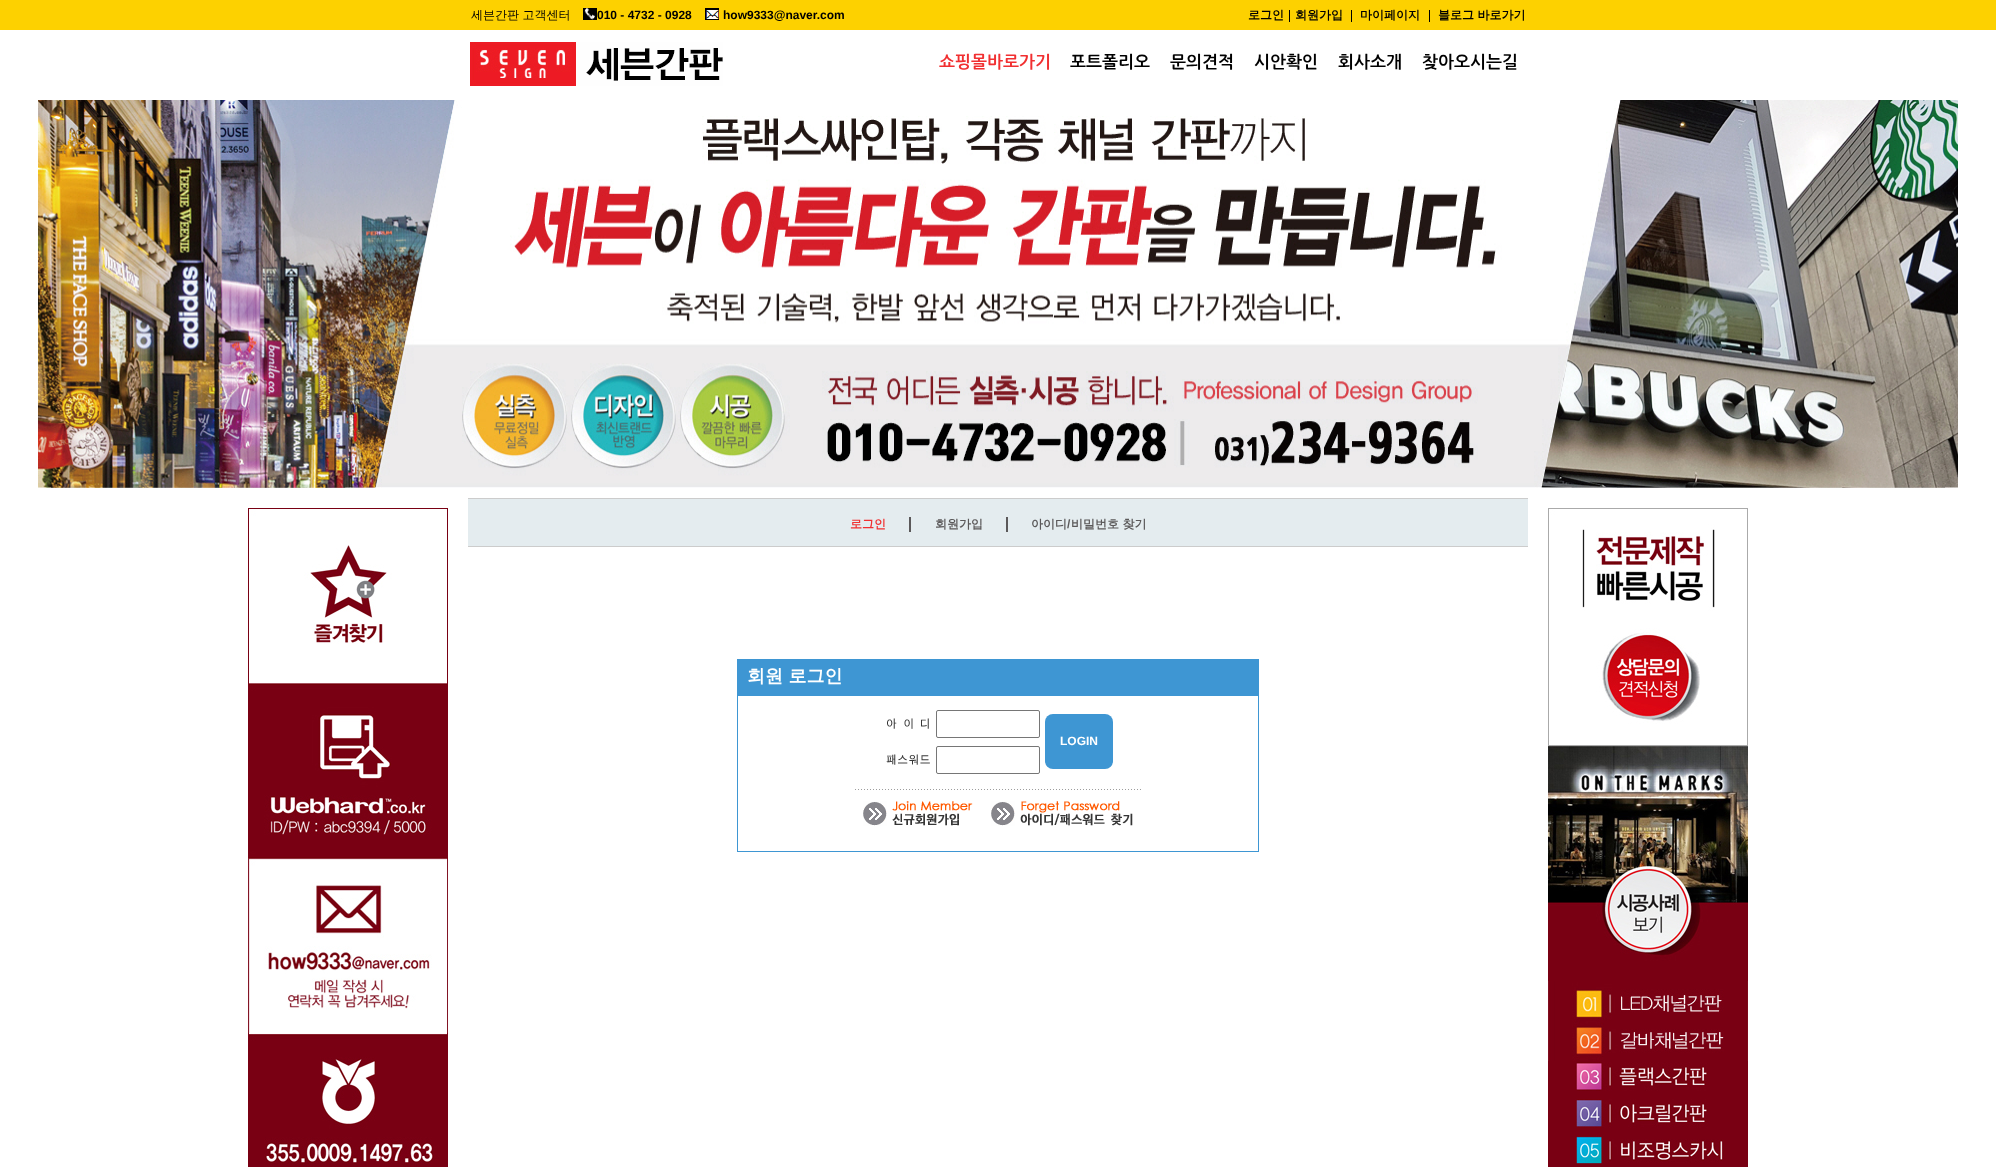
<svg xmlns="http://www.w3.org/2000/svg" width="1996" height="1167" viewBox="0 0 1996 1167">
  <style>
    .t1 { font: 500 12px WenQuanYi Zen Hei; fill: #000; }
    .t2 { font: bold 12px Liberation Sans; fill: #000; }
    .t3 { font: bold 12px WenQuanYi Zen Hei; fill: #000; }
    .t4 { font: bold 17px NanumGothic; fill: #f13031; }
    .t5 { font: bold 17px NanumGothic; fill: #000; }
    .t6 { font: bold 12px WenQuanYi Zen Hei; fill: #f13031; }
    .t7 { font: bold 12px WenQuanYi Zen Hei; fill: #5b595a; }
    .t8 { font: bold 12px Liberation Sans; fill: #5b595a; }
    .t9 { font: bold 18px WenQuanYi Zen Hei; fill: #fff; }
    .t10 { font: bold 12px Liberation Sans; fill: #fff; }
  </style>
  <rect width="100%" height="100%" fill="#fff"/>
  <rect x="0" y="0" width="1996" height="30" fill="#fdd100"/>
  <text x="471" y="19" class="t1">세븐간판 고객센터</text>
  <image x="583" y="8" width="14" height="12" href="images/1.png"/>
  <text x="597" y="19" class="t2">010 - 4732 - 0928</text>
  <image x="705" y="8" width="14" height="12" href="images/2.png"/>
  <text x="723" y="19" class="t2">how9333@naver.com</text>
  <text x="1248" y="19" class="t3">로그인</text>
  <rect x="1289" y="10" width="1" height="12" fill="#000"/>
  <text x="1295" y="19" class="t3">회원가입</text>
  <rect x="1351" y="10" width="1" height="12" fill="#000"/>
  <text x="1360" y="19" class="t3">마이페이지</text>
  <rect x="1429" y="10" width="1" height="12" fill="#000"/>
  <text x="1438" y="19" class="t3">블로그 바로가기</text>
  <image x="470" y="42" width="253" height="44" href="images/3.png"/>
  <text x="939" y="68" class="t4">쇼핑몰바로가기</text>
  <text x="1070" y="68" class="t5">포트폴리오</text>
  <text x="1170" y="68" class="t5">문의견적</text>
  <text x="1254" y="68" class="t5">시안확인</text>
  <text x="1338" y="68" class="t5">회사소개</text>
  <text x="1422" y="68" class="t5">찾아오시는길</text>
  <image x="38" y="100" width="1920" height="388" href="images/4.png"/>
  <image x="248" y="508" width="200" height="175" href="images/5.png"/>
  <image x="248" y="683" width="200" height="175" href="images/6.png"/>
  <image x="248" y="858" width="200" height="175" href="images/7.png"/>
  <image x="248" y="1033" width="200" height="134" href="images/8.png"/>
  <rect x="468" y="499" width="1060" height="47" fill="#e4ecef"/>
  <rect x="468" y="498" width="1060" height="1" fill="#ccc"/>
  <rect x="468" y="546" width="1060" height="1" fill="#ccc"/>
  <text x="850" y="528" class="t6">로그인</text>
  <rect x="909" y="517" width="2" height="15" fill="#5b595a"/>
  <text x="935" y="528" class="t7">회원가입</text>
  <rect x="1006" y="517" width="2" height="15" fill="#5b595a"/>
  <text x="1031" y="528" class="t7">아이디</text>
  <text x="1067" y="528" class="t8">/</text>
  <text x="1071" y="528" class="t7">비밀번호 찾기</text>
  <rect x="737" y="659" width="522" height="36" fill="#3e96d3"/>
  <text x="747" y="682" class="t9">회원 로그인</text>
  <rect x="737.5" y="695.5" width="521" height="156" fill="none" stroke="#3e96d3"/>
  <image x="887" y="718" width="42" height="11" href="images/9.png"/>
  <rect x="936.5" y="710.5" width="103" height="27" rx="1.5" fill="none" stroke="#767676"/>
  <rect x="1045" y="714" width="68" height="55" rx="8" fill="#3e96d3"/>
  <text x="1060" y="745" class="t10">LOGIN</text>
  <image x="886" y="754" width="44" height="11" href="images/10.png"/>
  <rect x="936.5" y="746.5" width="103" height="27" rx="1.5" fill="none" stroke="#767676"/>
  <image x="855" y="789" width="286" height="1" href="images/11.png"/>
  <image x="863" y="801" width="110" height="25" href="images/12.png"/>
  <image x="991" y="801" width="142" height="25" href="images/13.png"/>
  <image x="1548" y="508" width="200" height="238" href="images/14.png"/>
  <image x="1548" y="746" width="200" height="215" href="images/15.png"/>
  <rect x="1548" y="961" width="200" height="206" fill="#790013"/>
  <image x="1548" y="981" width="200" height="40" href="images/16.png"/>
  <image x="1548" y="1021" width="200" height="40" href="images/17.png"/>
  <image x="1575" y="1062" width="133" height="29" href="images/18.png"/>
  <image x="1575" y="1099" width="133" height="29" href="images/19.png"/>
  <image x="1575" y="1135" width="149" height="30" href="images/20.png"/>
</svg>
